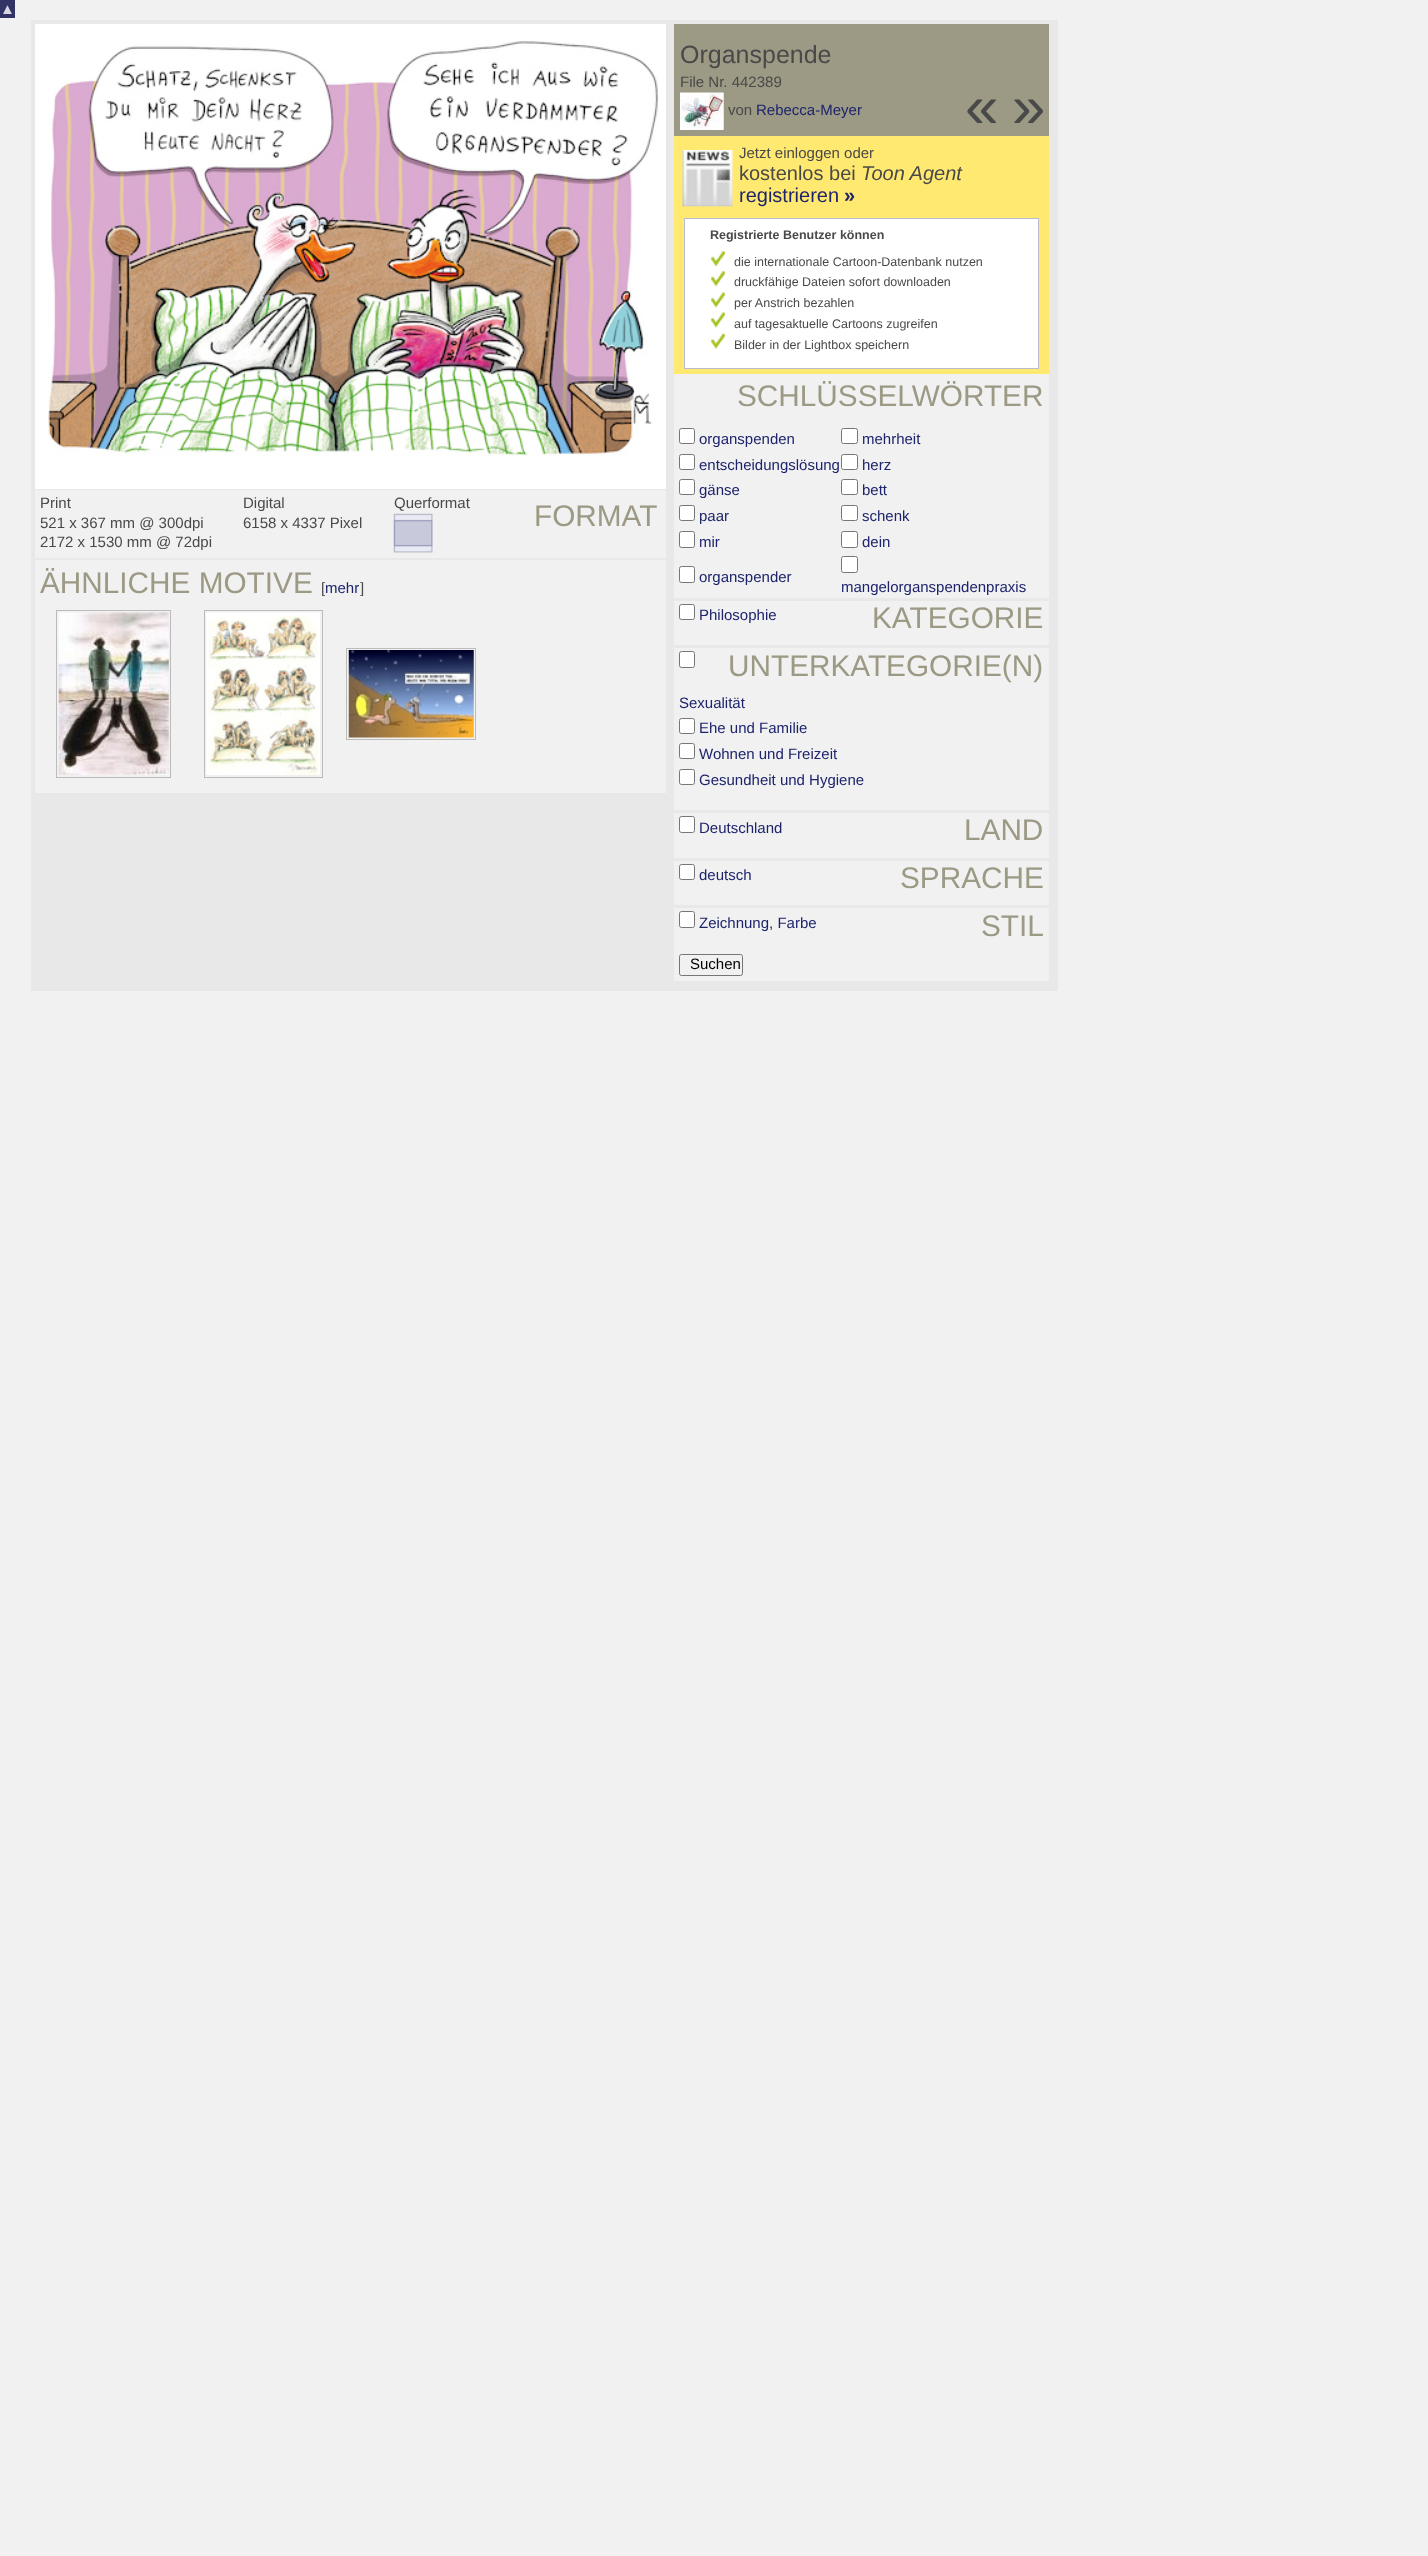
<svg xmlns="http://www.w3.org/2000/svg" width="1428" height="2556" viewBox="0 0 1428 2556">
  <style>
    .t1 { font: 15px Liberation Sans; fill: #d8d9e5; }
    .t2 { font: 15px Liberation Sans; fill: #494949; }
    .t3 { font: 29.75px Liberation Sans; fill: #9c9984; }
    .t4 { font: 15px Liberation Sans; fill: #1d246c; }
    .t5 { font: 25px Liberation Sans; fill: #494949; }
    .t6 { font: 60px Liberation Sans; fill: #494949; }
    .t7 { font: 20px Liberation Sans; fill: #494949; }
    .t8 { font: italic 20px Liberation Sans; fill: #494949; }
    .t9 { font: 20px Liberation Sans; fill: #1d246c; }
    .t10 { font: bold 20px Liberation Sans; fill: #1d246c; }
    .t11 { font: bold 12.5px Liberation Sans; fill: #494949; }
    .t12 { font: 12.5px Liberation Sans; fill: #494949; }
    .t13 { font: 15px Liberation Sans; fill: #000; }
  </style>
  <rect width="100%" height="100%" fill="#f1f1f1"/>
  <rect x="0" y="0" width="15" height="18" fill="#336"/>
  <text x="0" y="14" class="t1">▲</text>
  <rect x="31" y="20" width="1027" height="971" fill="#e8e8e8"/>
  <rect x="35" y="24" width="631" height="465" fill="#fff"/>
  <image x="48" y="41" width="611" height="415" href="images/1.png"/>
  <rect x="35" y="490" width="631" height="68" fill="#f1f1f1"/>
  <text x="40" y="508" class="t2">Print</text>
  <text x="40" y="528" class="t2">521 x 367 mm @ 300dpi</text>
  <text x="40" y="547" class="t2">2172 x 1530 mm @ 72dpi</text>
  <text x="243" y="508" class="t2">Digital</text>
  <text x="243" y="528" class="t2">6158 x 4337 Pixel</text>
  <text x="394" y="508" class="t2">Querformat</text>
  <image x="393" y="513" width="40" height="40" href="images/2.png"/>
  <text x="534" y="526" class="t3">FORMAT</text>
  <rect x="35" y="560" width="631" height="233" fill="#f1f1f1"/>
  <text x="40" y="593" class="t3">ÄHNLICHE MOTIVE</text>
  <text x="321" y="593" class="t2">[</text>
  <text x="325" y="593" class="t4">mehr</text>
  <text x="360" y="593" class="t2">]</text>
  <rect x="56.5" y="610.5" width="114" height="167" fill="none" stroke="#bbb"/>
  <image x="58" y="612" width="111" height="163" href="images/3.png"/>
  <rect x="204.5" y="610.5" width="118" height="167" fill="none" stroke="#bbb"/>
  <image x="206" y="612" width="114" height="163" href="images/4.png"/>
  <rect x="346.5" y="648.5" width="129" height="91" fill="none" stroke="#bbb"/>
  <image x="348" y="650" width="126" height="88" href="images/5.png"/>
  <rect x="674" y="24" width="375" height="112" fill="#9c9984"/>
  <text x="680" y="63" class="t5">Organspende</text>
  <text x="680" y="87" class="t2">File Nr. 442389</text>
  <image x="680" y="92" width="44" height="38" href="images/6.png"/>
  <text x="728" y="115" class="t2">von</text>
  <text x="756" y="115" class="t4">Rebecca-Meyer</text>
  <text x="965" y="127" class="t6">«</text>
  <text x="1012" y="127" class="t6">»</text>
  <rect x="674" y="136" width="375" height="238" fill="#ffe970"/>
  <image x="682" y="150" width="51" height="57" href="images/7.png"/>
  <text x="739" y="158" class="t2">Jetzt einloggen oder</text>
  <text x="739" y="180" class="t7">kostenlos bei</text>
  <text x="861" y="180" class="t8">Toon Agent</text>
  <text x="739" y="202" class="t9">registrieren</text>
  <text x="844" y="202" class="t10">»</text>
  <rect x="684.5" y="218.5" width="354" height="150" fill="#fff" stroke="#b9bbd0"/>
  <text x="710" y="239" class="t11">Registrierte Benutzer können</text>
  <image x="711" y="251" width="14" height="16" href="images/8.png"/>
  <text x="734" y="266" class="t12">die internationale Cartoon-Datenbank nutzen</text>
  <image x="711" y="271" width="14" height="16" href="images/8.png"/>
  <text x="734" y="286" class="t12">druckfähige Dateien sofort downloaden</text>
  <image x="711" y="292" width="14" height="16" href="images/9.png"/>
  <text x="734" y="307" class="t12">per Anstrich bezahlen</text>
  <image x="711" y="312" width="14" height="16" href="images/10.png"/>
  <text x="734" y="328" class="t12">auf tagesaktuelle Cartoons zugreifen</text>
  <image x="711" y="333" width="14" height="16" href="images/11.png"/>
  <text x="734" y="349" class="t12">Bilder in der Lightbox speichern</text>
  <rect x="674" y="374" width="375" height="607" fill="#f1f1f1"/>
  <text x="737" y="406" class="t3">SCHLÜSSELWÖRTER</text>
  <rect x="679.5" y="428.5" width="15" height="15" rx="2" fill="#fff" stroke="#767676"/>
  <text x="699" y="444" class="t4">organspenden</text>
  <rect x="841.5" y="428.5" width="16" height="15" rx="2" fill="#fff" stroke="#767676"/>
  <text x="862" y="444" class="t4">mehrheit</text>
  <rect x="679.5" y="454.5" width="15" height="15" rx="2" fill="#fff" stroke="#767676"/>
  <text x="699" y="470" class="t4">entscheidungslösung</text>
  <rect x="841.5" y="454.5" width="16" height="15" rx="2" fill="#fff" stroke="#767676"/>
  <text x="862" y="470" class="t4">herz</text>
  <rect x="679.5" y="479.5" width="15" height="15" rx="2" fill="#fff" stroke="#767676"/>
  <text x="699" y="495" class="t4">gänse</text>
  <rect x="841.5" y="479.5" width="16" height="15" rx="2" fill="#fff" stroke="#767676"/>
  <text x="862" y="495" class="t4">bett</text>
  <rect x="679.5" y="505.5" width="15" height="15" rx="2" fill="#fff" stroke="#767676"/>
  <text x="699" y="521" class="t4">paar</text>
  <rect x="841.5" y="505.5" width="16" height="15" rx="2" fill="#fff" stroke="#767676"/>
  <text x="862" y="521" class="t4">schenk</text>
  <rect x="679.5" y="531.5" width="15" height="16" rx="2" fill="#fff" stroke="#767676"/>
  <text x="699" y="547" class="t4">mir</text>
  <rect x="841.5" y="531.5" width="16" height="16" rx="2" fill="#fff" stroke="#767676"/>
  <text x="862" y="547" class="t4">dein</text>
  <rect x="679.5" y="566.5" width="15" height="16" rx="2" fill="#fff" stroke="#767676"/>
  <text x="699" y="582" class="t4">organspender</text>
  <rect x="841.5" y="556.5" width="16" height="16" rx="2" fill="#fff" stroke="#767676"/>
  <text x="841" y="592" class="t4">mangelorganspendenpraxis</text>
  <rect x="674" y="598" width="375" height="3" fill="#e8e8e8"/>
  <rect x="679.5" y="604.5" width="15" height="15" rx="2" fill="#fff" stroke="#767676"/>
  <text x="699" y="620" class="t4">Philosophie</text>
  <text x="872" y="628" class="t3">KATEGORIE</text>
  <rect x="674" y="645" width="375" height="3" fill="#e8e8e8"/>
  <rect x="679.5" y="651.5" width="15" height="16" rx="2" fill="#fff" stroke="#767676"/>
  <text x="728" y="676" class="t3">UNTERKATEGORIE(N)</text>
  <text x="679" y="708" class="t4">Sexualität</text>
  <rect x="679.5" y="718.5" width="15" height="15" rx="2" fill="#fff" stroke="#767676"/>
  <text x="699" y="733" class="t4">Ehe und Familie</text>
  <rect x="679.5" y="743.5" width="15" height="15" rx="2" fill="#fff" stroke="#767676"/>
  <text x="699" y="759" class="t4">Wohnen und Freizeit</text>
  <rect x="679.5" y="769.5" width="15" height="15" rx="2" fill="#fff" stroke="#767676"/>
  <text x="699" y="785" class="t4">Gesundheit und Hygiene</text>
  <rect x="674" y="810" width="375" height="3" fill="#e8e8e8"/>
  <rect x="679.5" y="816.5" width="15" height="16" rx="2" fill="#fff" stroke="#767676"/>
  <text x="699" y="833" class="t4">Deutschland</text>
  <text x="964" y="840" class="t3">LAND</text>
  <rect x="674" y="858" width="375" height="3" fill="#e8e8e8"/>
  <rect x="679.5" y="864.5" width="15" height="15" rx="2" fill="#fff" stroke="#767676"/>
  <text x="699" y="880" class="t4">deutsch</text>
  <text x="900" y="888" class="t3">SPRACHE</text>
  <rect x="674" y="905" width="375" height="3" fill="#e8e8e8"/>
  <rect x="679.5" y="911.5" width="15" height="16" rx="2" fill="#fff" stroke="#767676"/>
  <text x="699" y="928" class="t4">Zeichnung, Farbe</text>
  <text x="981" y="936" class="t3">STIL</text>
  <rect x="679.5" y="954.5" width="63" height="21" rx="2" fill="none" stroke="#767676"/>
  <text x="690" y="969" class="t13">Suchen</text>
</svg>
